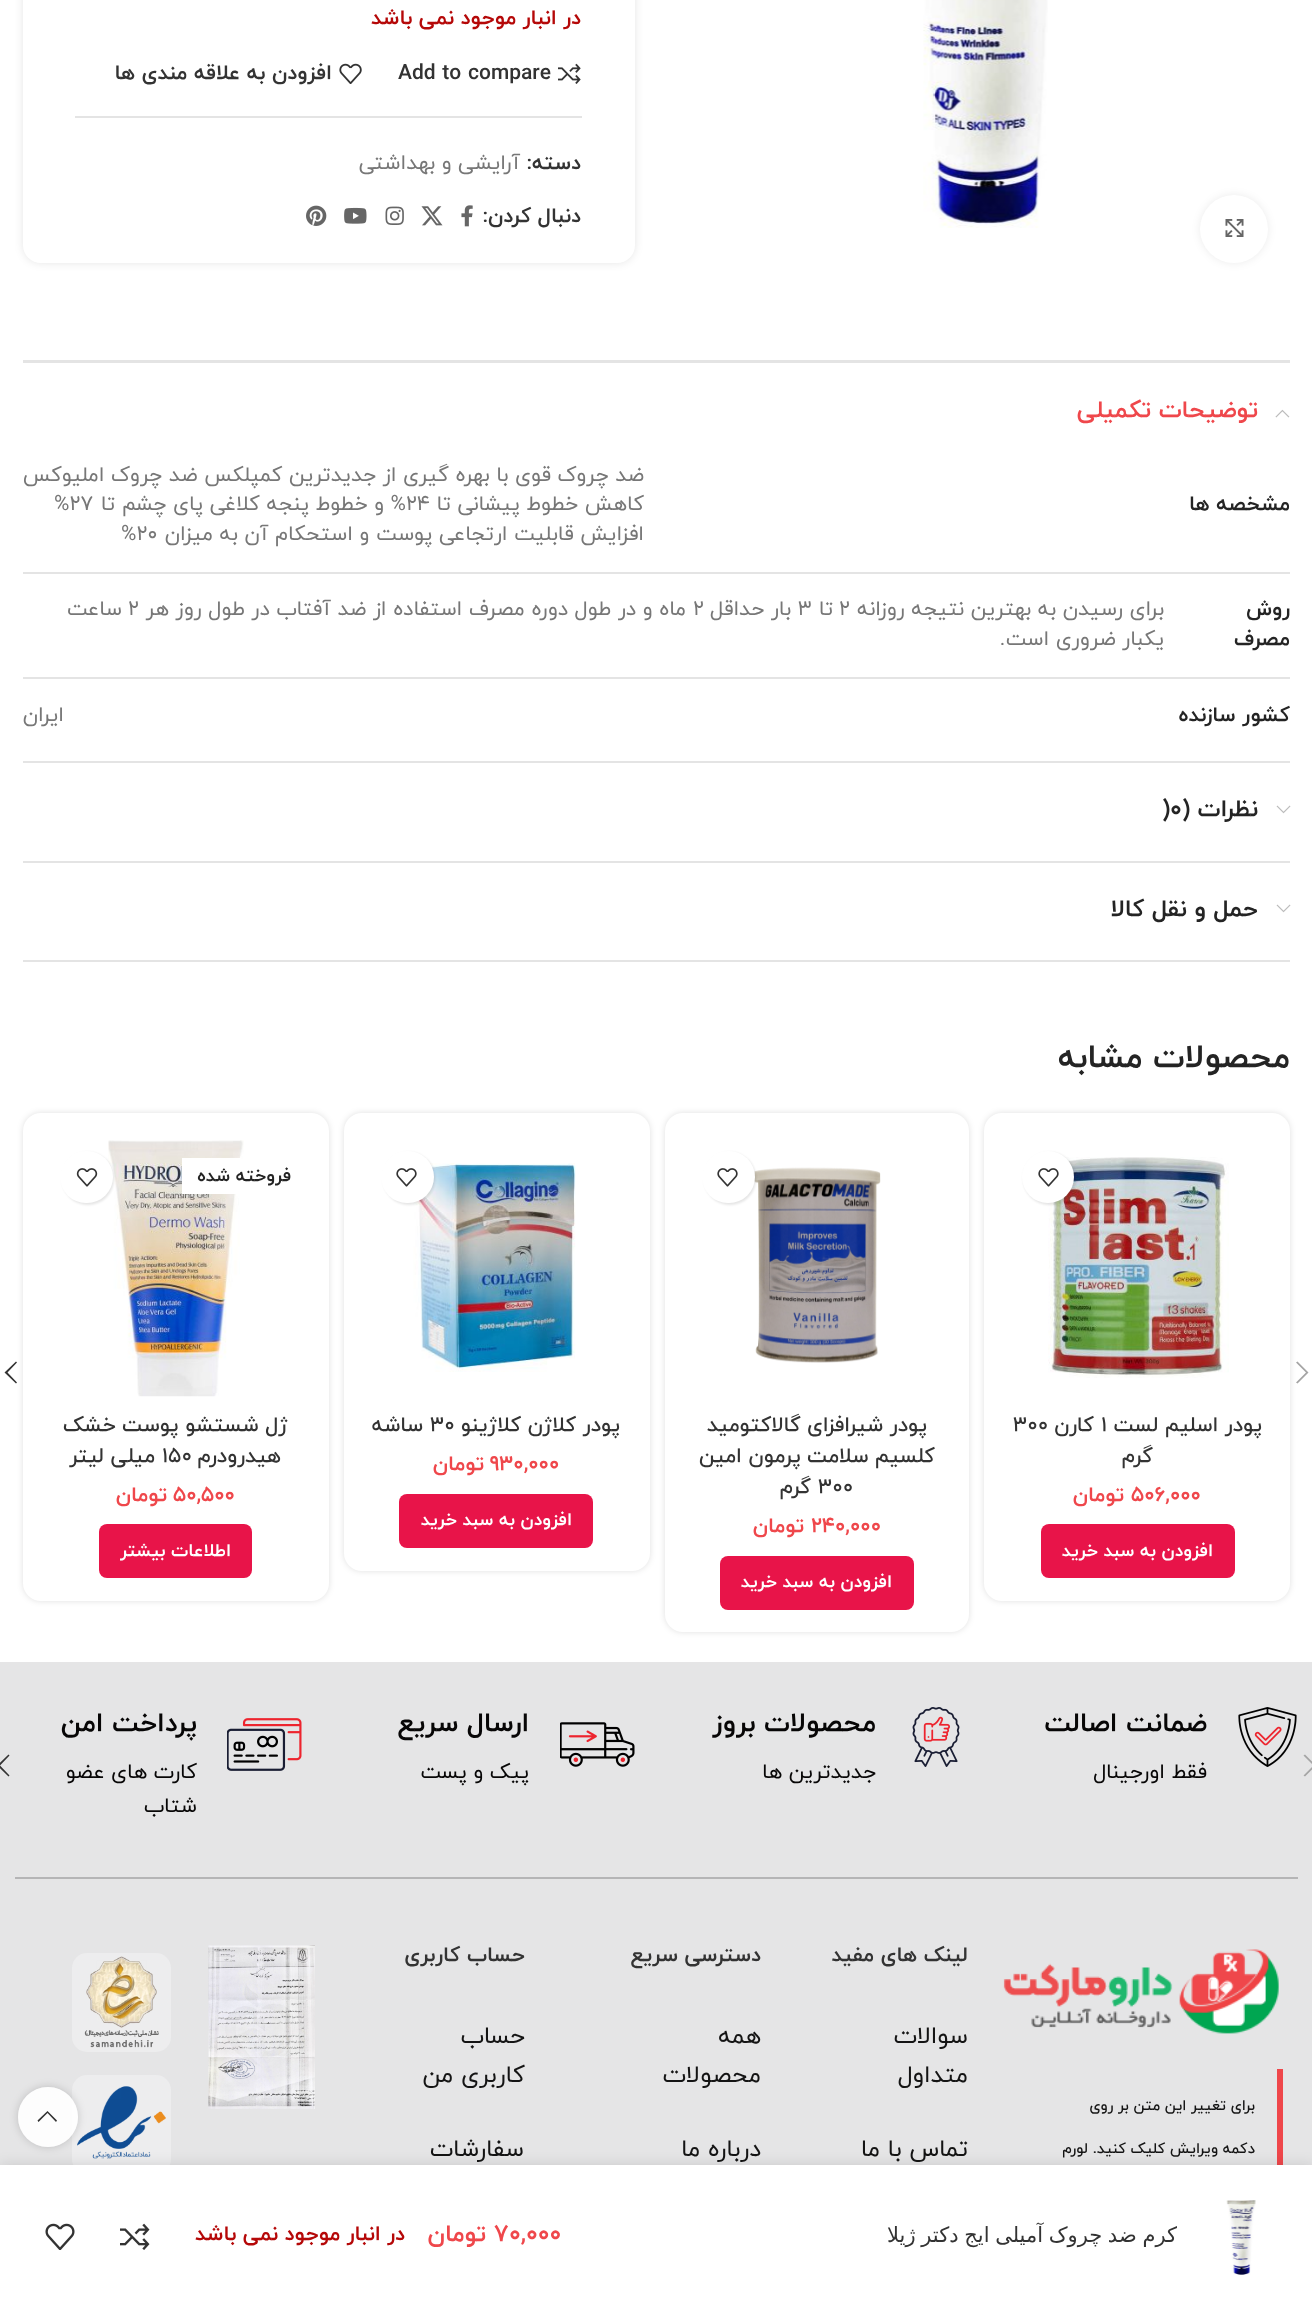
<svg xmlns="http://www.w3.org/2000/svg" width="1312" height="2306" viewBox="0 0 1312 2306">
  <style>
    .t1 { font: bold 21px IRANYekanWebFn; direction: rtl; fill: #b50808; }
    .t2 { font: bold 21px IRANYekanWebFn; fill: #333; }
    .t3 { font: bold 21px IRANYekanWebFn; direction: rtl; fill: #333; }
    .t4 { font: 21px IRANYekanWebFn; direction: rtl; fill: #777; }
    .t5 { font: bold 24px IRANYekanWebFn; direction: rtl; fill: #ef474b; }
    .t6 { font: bold 21px IRANYekanWebFn; direction: rtl; fill: #242424; }
    .t7 { font: 21px IRANYekanWebFn; fill: #777; }
    .t8 { font: bold 24px IRANYekanWebFn; direction: rtl; fill: #242424; }
    .t9 { font: bold 24px IRANYekanWebFn; fill: #242424; }
    .t10 { font: bold 33px IRANYekanWebFn; direction: rtl; fill: #242424; }
    .t11 { font: 500 21px IRANYekanWebFn; direction: rtl; fill: #333; }
    .t12 { font: 500 21px IRANYekanWebFn; fill: #333; }
    .t13 { font: bold 21px IRANYekanWebFn; fill: #ef474b; }
    .t14 { font: bold 21px IRANYekanWebFn; direction: rtl; fill: #ef474b; }
    .t15 { font: bold 18px IRANYekanWebFn; direction: rtl; fill: #fff; }
    .t16 { font: bold 18px IRANYekanWebFn; direction: rtl; fill: #242424; }
    .t17 { font: bold 27px IRANYekanWebFn; direction: rtl; fill: #070606; }
    .t18 { font: 21px IRANYekanWebFn; direction: rtl; fill: #070606; }
    .t19 { font: 500 15px IRANYekanWebFn; direction: rtl; fill: #141414; }
    .t20 { font: 24px IRANYekanWebFn; direction: rtl; fill: #141414; }
    .t21 { font: 21px DejaVu Sans; direction: rtl; fill: #333; }
    .t22 { font: bold 24px IRANYekanWebFn; fill: #ef474b; }
  </style>
  <defs>
    <clipPath id="clip1"><path d="M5 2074H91V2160H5ZM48 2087C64.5 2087 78 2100.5 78 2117C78 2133.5 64.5 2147 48 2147C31.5 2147 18 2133.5 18 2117C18 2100.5 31.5 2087 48 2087Z" clip-rule="evenodd"/></clipPath>
  </defs>
  <rect width="100%" height="100%" fill="#fff"/>
  <rect x="1200" y="195" width="68" height="68" rx="34" fill="#00000014" filter="blur(4px)"/>
  <circle cx="1234" cy="229" r="34" fill="#fff"/>
  <image x="1225" y="219" width="19" height="18" href="images/1.png"/>
  <image x="923" y="0" width="125" height="228" href="images/2.png"/>
  <rect x="23" y="-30" width="612" height="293" rx="18" fill="#0000001a" filter="blur(4px)"/>
  <rect x="23" y="-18" width="612" height="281" rx="18" fill="#fff"/>
  <text x="581" y="24" class="t1">در انبار موجود نمی باشد</text>
  <image x="558" y="63" width="23" height="21" href="images/3.png"/>
  <text x="398" y="79" class="t2">Add to compare</text>
  <image x="339" y="63" width="23" height="21" href="images/4.png"/>
  <text x="332" y="79" class="t3">افزودن به علاقه مندی ها</text>
  <rect x="75" y="116" width="507" height="2" fill="#e4e4e4"/>
  <text x="581" y="169" class="t3">دسته:</text>
  <text x="520" y="169" class="t4">آرایشی و بهداشتی</text>
  <text x="581" y="222" class="t3">دنبال کردن:</text>
  <image x="461" y="205" width="12" height="22" href="images/5.png"/>
  <image x="421" y="206" width="22" height="20" href="images/6.png"/>
  <image x="385" y="206" width="19" height="19" href="images/7.png"/>
  <image x="344" y="207" width="23" height="17" href="images/8.png"/>
  <image x="306" y="205" width="21" height="21" href="images/9.png"/>
  <rect x="23" y="360" width="1267" height="3" fill="#e4e4e4"/>
  <rect x="23" y="761" width="1267" height="2" fill="#e4e4e4"/>
  <image x="1275" y="409" width="15" height="9" href="images/10.png"/>
  <text x="1258" y="417" class="t5">توضیحات تکمیلی</text>
  <rect x="23" y="572" width="1267" height="2" fill="#e4e4e4"/>
  <text x="1290" y="510" class="t6">مشخصه ها</text>
  <text x="644" y="481" class="t4">ضد چروک قوی با بهره گیری از جدیدترین کمپلکس ضد چروک املیوکس</text>
  <text x="644" y="510" class="t4">کاهش خطوط پیشانی تا</text>
  <text x="406" y="510" class="t7">24</text>
  <text x="406" y="510" class="t4">% و خطوط پنجه کلاغی پای چشم تا</text>
  <text x="54" y="510" class="t7">%27</text>
  <text x="644" y="540" class="t4">افزایش قابلیت ارتجاعی پوست و استحکام آن به میزان</text>
  <text x="121" y="540" class="t7">%20</text>
  <rect x="23" y="677" width="1267" height="2" fill="#e4e4e4"/>
  <text x="1290" y="615" class="t6">روش</text>
  <text x="1290" y="645" class="t6">مصرف</text>
  <text x="1164" y="615" class="t4">برای رسیدن به بهترین نتیجه روزانه</text>
  <text x="839" y="615" class="t7">2</text>
  <text x="833" y="615" class="t4">تا</text>
  <text x="798" y="615" class="t7">3</text>
  <text x="791" y="615" class="t4">بار حداقل</text>
  <text x="693" y="615" class="t7">2</text>
  <text x="686" y="615" class="t4">ماه و در طول دوره مصرف استفاده از ضد آفتاب در طول روز هر</text>
  <text x="128" y="615" class="t7">2</text>
  <text x="122" y="615" class="t4">ساعت</text>
  <text x="1164" y="645" class="t4">یکبار ضروری است.</text>
  <text x="1290" y="721" class="t6">کشور سازنده</text>
  <text x="64" y="721" class="t4">ایران</text>
  <rect x="23" y="861" width="1267" height="2" fill="#e4e4e4"/>
  <image x="1276" y="805" width="15" height="9" href="images/11.png"/>
  <text x="1258" y="816" class="t8">نظرات (</text>
  <text x="1162" y="816" class="t9">)0</text>
  <rect x="23" y="960" width="1267" height="2" fill="#e4e4e4"/>
  <image x="1276" y="904" width="15" height="9" href="images/11.png"/>
  <text x="1258" y="916" class="t8">حمل و نقل کالا</text>
  <text x="1290" y="1067" class="t10">محصولات مشابه</text>
  <rect x="984" y="1113" width="306" height="488" rx="18" fill="#0000001f" filter="blur(3px)"/>
  <rect x="984" y="1113" width="306" height="488" rx="18" fill="#fff"/>
  <image x="1048" y="1157" width="181" height="221" href="images/13.png"/>
  <rect x="1023" y="1152" width="53" height="53" rx="26.5" fill="#0000001a" filter="blur(1px)"/>
  <circle cx="1048" cy="1177" r="26" fill="#fff"/>
  <image x="1038" y="1168" width="21" height="19" href="images/12.png"/>
  <text x="1262" y="1431" class="t11">پودر اسلیم لست</text>
  <text x="1101" y="1431" class="t12">1</text>
  <text x="1094" y="1431" class="t11">کارن</text>
  <text x="1013" y="1431" class="t12">300</text>
  <text x="1153" y="1462" class="t11">گرم</text>
  <text x="1131" y="1501" class="t13">506,000</text>
  <text x="1124" y="1501" class="t14">تومان</text>
  <rect x="1041" y="1524" width="194" height="54" rx="8" fill="#e81449"/>
  <text x="1213" y="1556" class="t15">افزودن به سبد خرید</text>
  <rect x="665" y="1113" width="304" height="519" rx="18" fill="#0000001f" filter="blur(3px)"/>
  <rect x="665" y="1113" width="304" height="519" rx="18" fill="#fff"/>
  <image x="754" y="1167" width="127" height="196" href="images/14.png"/>
  <rect x="704" y="1152" width="52" height="53" rx="26" fill="#0000001a" filter="blur(1px)"/>
  <rect x="702" y="1151" width="53" height="52" rx="26" fill="#fff"/>
  <image x="717" y="1168" width="21" height="19" href="images/12.png"/>
  <text x="927" y="1431" class="t11">پودر شیرافزای گالاکتومید</text>
  <text x="935" y="1462" class="t11">کلسیم سلامت پرمون امین</text>
  <text x="818" y="1493" class="t12">300</text>
  <text x="811" y="1493" class="t11">گرم</text>
  <text x="811" y="1532" class="t13">240,000</text>
  <text x="804" y="1532" class="t14">تومان</text>
  <rect x="720" y="1556" width="194" height="54" rx="8" fill="#e81449"/>
  <text x="892" y="1587" class="t15">افزودن به سبد خرید</text>
  <rect x="344" y="1113" width="306" height="458" rx="18" fill="#0000001f" filter="blur(3px)"/>
  <rect x="344" y="1113" width="306" height="458" rx="18" fill="#fff"/>
  <image x="413" y="1163" width="163" height="209" href="images/15.png"/>
  <rect x="383" y="1152" width="52" height="53" rx="26" fill="#0000001a" filter="blur(1px)"/>
  <rect x="381" y="1151" width="53" height="52" rx="26" fill="#fff"/>
  <image x="396" y="1168" width="21" height="19" href="images/12.png"/>
  <text x="620" y="1431" class="t11">پودر کلاژن کلاژینو</text>
  <text x="430" y="1431" class="t12">30</text>
  <text x="423" y="1431" class="t11">ساشه</text>
  <text x="490" y="1470" class="t13">930,000</text>
  <text x="484" y="1470" class="t14">تومان</text>
  <rect x="399" y="1494" width="194" height="54" rx="8" fill="#e81449"/>
  <text x="572" y="1525" class="t15">افزودن به سبد خرید</text>
  <rect x="23" y="1113" width="306" height="488" rx="18" fill="#0000001f" filter="blur(3px)"/>
  <rect x="23" y="1113" width="306" height="488" rx="18" fill="#fff"/>
  <image x="108" y="1140" width="136" height="257" href="images/16.png"/>
  <rect x="182" y="1158" width="59" height="36" fill="#fff"/>
  <text x="291" y="1181" class="t16">فروخته شده</text>
  <rect x="62" y="1152" width="52" height="53" rx="26" fill="#0000001a" filter="blur(1px)"/>
  <rect x="60" y="1151" width="53" height="52" rx="26" fill="#fff"/>
  <image x="76" y="1168" width="22" height="19" href="images/17.png"/>
  <text x="288" y="1431" class="t11">ژل شستشو پوست خشک</text>
  <text x="281" y="1462" class="t11">هیدرودرم</text>
  <text x="162" y="1462" class="t12">150</text>
  <text x="155" y="1462" class="t11">میلی لیتر</text>
  <text x="173" y="1501" class="t13">50,500</text>
  <text x="167" y="1501" class="t14">تومان</text>
  <rect x="99" y="1524" width="153" height="54" rx="8" fill="#e81449"/>
  <text x="231" y="1556" class="t15">اطلاعات بیشتر</text>
  <path d="M1296 1362.5L1306 1372.5L1296 1382.5L1297.5 1383.5L1308.5 1372.5L1297.5 1361.5Z" fill="#a5a5a5"/>
  <path d="M17 1362.5L16 1361.5L4.5 1372.5L16 1383.5L17 1382.5L7.5 1372.5Z" fill="#333"/>
  <rect x="0" y="1662" width="1312" height="503" fill="#e5e5e6"/>
  <image x="1238" y="1707" width="59" height="60" href="images/18.png"/>
  <text x="1207" y="1731" class="t17">ضمانت اصالت</text>
  <text x="1207" y="1778" class="t18">فقط اورجینال</text>
  <image x="912" y="1707" width="48" height="60" href="images/19.png"/>
  <text x="876" y="1731" class="t17">محصولات بروز</text>
  <text x="876" y="1778" class="t18">جدیدترین ها</text>
  <image x="560" y="1722" width="75" height="45" href="images/20.png"/>
  <text x="529" y="1731" class="t17">ارسال سریع</text>
  <text x="529" y="1778" class="t18">پیک و پست</text>
  <image x="227" y="1718" width="75" height="53" href="images/21.png"/>
  <text x="197" y="1731" class="t17">پرداخت امن</text>
  <text x="197" y="1778" class="t18">کارت های عضو</text>
  <text x="197" y="1812" class="t18">شتاب</text>
  <path d="M1303.5 1755.5L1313.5 1765.5L1303.5 1775.5L1305 1776.5L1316 1765.5L1305 1754.5Z" fill="#a5a5a5"/>
  <path d="M9.5 1755.5L8.5 1754.5L-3 1765.5L8.5 1776.5L9.5 1775.5L0 1765.5Z" fill="#333"/>
  <rect x="15" y="1877" width="1283" height="2" fill="#b5b5b6"/>
  <image x="1003" y="1949" width="276" height="85" href="images/22.png"/>
  <rect x="1277" y="2069" width="6" height="96" fill="#ef474b"/>
  <text x="1255" y="2110" class="t19">برای تغییر این متن بر روی</text>
  <text x="1255" y="2153" class="t19">دکمه ویرایش کلیک کنید. لورم</text>
  <text x="968" y="1961" class="t3">لینک های مفید</text>
  <text x="968" y="2043" class="t20">سوالات</text>
  <text x="968" y="2082" class="t20">متداول</text>
  <text x="968" y="2156" class="t20">تماس با ما</text>
  <text x="761" y="1961" class="t3">دسترسی سریع</text>
  <text x="761" y="2043" class="t20">همه</text>
  <text x="761" y="2082" class="t20">محصولات</text>
  <text x="761" y="2156" class="t20">درباره ما</text>
  <text x="525" y="1961" class="t3">حساب کاربری</text>
  <text x="525" y="2043" class="t20">حساب</text>
  <text x="525" y="2082" class="t20">کاربری من</text>
  <text x="524" y="2156" class="t20">سفارشات</text>
  <image x="208" y="1945" width="107" height="164" href="images/23.png"/>
  <rect x="72" y="1953" width="99" height="99" rx="15" fill="#ededee"/>
  <image x="84" y="1956" width="75" height="92" href="images/24.png"/>
  <rect x="72" y="2075" width="99" height="99" rx="15" fill="#ededee"/>
  <image x="77" y="2086" width="89" height="73" href="images/25.png"/>
  <g clip-path="url(#clip1)">
    <rect x="18" y="2087" width="60" height="60" rx="30" fill="#0000002b" filter="blur(4px)"/>
  </g>
  <rect x="0" y="2165" width="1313" height="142" fill="#0000001f" filter="blur(7px)"/>
  <circle cx="48" cy="2117" r="30" fill="#ffffffe6"/>
  <path d="M56 2122L57 2120.5L47.5 2111L37.5 2120.5L38.5 2122L47.5 2113Z" fill="#333"/>
  <rect x="0" y="2165" width="1312" height="141" fill="#fff"/>
  <image x="1226" y="2200" width="30" height="75" href="images/26.png"/>
  <text x="1177" y="2242" word-spacing="-1" class="t21">کرم ضد چروک آمیلی ایج دکتر ژیلا</text>
  <text x="494" y="2241" class="t22">70,000</text>
  <text x="486" y="2241" class="t5">تومان</text>
  <text x="405" y="2240" class="t1">در انبار موجود نمی باشد</text>
  <image x="120" y="2223" width="30" height="27" href="images/27.png"/>
  <image x="45" y="2223" width="30" height="27" href="images/28.png"/>
</svg>
